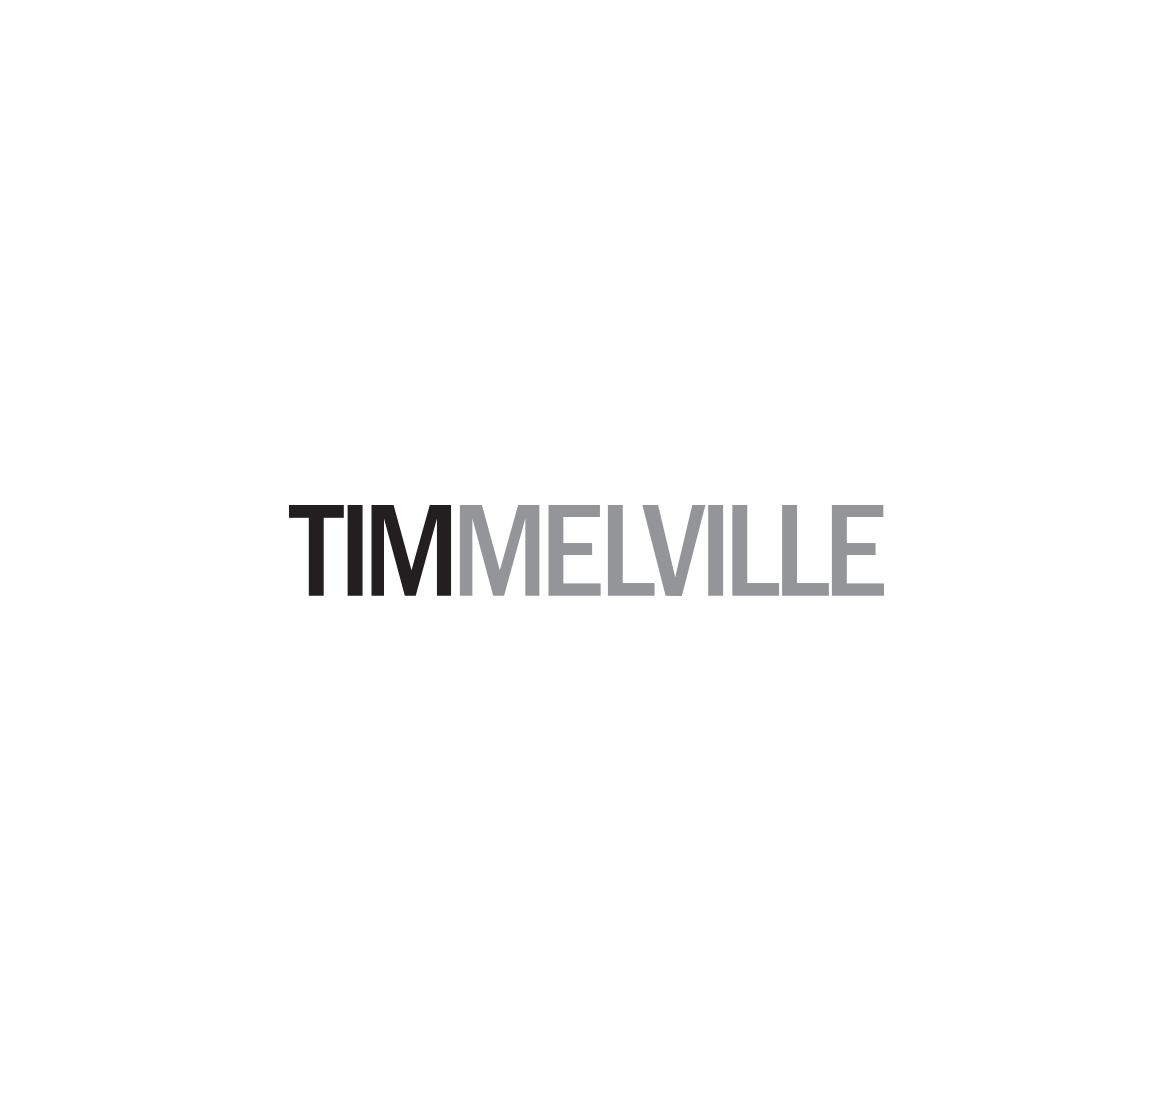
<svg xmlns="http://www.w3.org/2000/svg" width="1172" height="1101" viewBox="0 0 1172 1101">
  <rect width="100%" height="100%" fill="#fff"/>
  <image x="289" y="505" width="595" height="91" href="images/1.png"/>
</svg>
